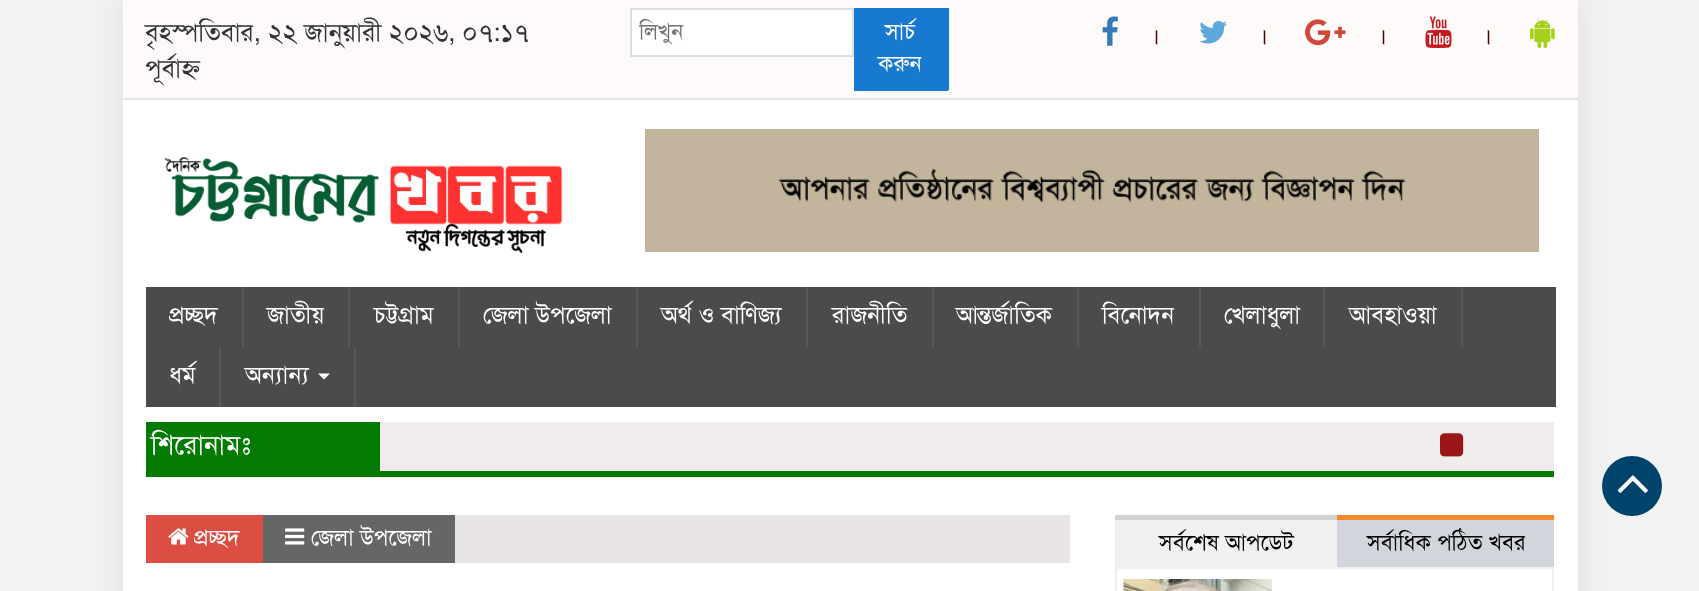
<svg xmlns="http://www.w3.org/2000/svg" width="1699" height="591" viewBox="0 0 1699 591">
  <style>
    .t1 { font: 25.5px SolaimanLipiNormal; fill: #333; }
    .t2 { font: 22.5px SolaimanLipiNormal; fill: #757575; }
    .t3 { font: 22.5px SolaimanLipiNormal; fill: #fff; }
    .t4 { font: 25.5px SolaimanLipiNormal; fill: #4d0202; }
    .t5 { font: 24px SolaimanLipiNormal; fill: #fff; }
    .t6 { font: 27px SolaimanLipiNormal; fill: #fff; }
    .t7 { font: 22.5px SolaimanLipiNormal; fill: #000; }
  </style>
  <defs>
    <clipPath id="clip1"><rect x="639" y="18" width="206" height="29"/></clipPath>
  </defs>
  <rect width="100%" height="100%" fill="#f2f2f2"/>
  <rect x="123" y="0" width="1455" height="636" fill="#ddd" filter="blur(15px)"/>
  <rect x="123" y="100" width="1455" height="491" fill="#fff"/>
  <rect x="123" y="0" width="1455" height="98" fill="#fefafa"/>
  <rect x="123" y="98" width="1455" height="2" fill="#e4e4e4"/>
  <text x="145" y="41" class="t1">বৃহস্পতিবার, ২২ জানুয়ারী ২০২৬, ০৭:১৭</text>
  <text x="145" y="77" class="t1">পূর্বাহ্ন</text>
  <rect x="631" y="9" width="222" height="47" fill="#fff" stroke="#ddd" stroke-width="2"/>
  <g clip-path="url(#clip1)">
    <text x="639" y="39" class="t2">লিখুন</text>
  </g>
  <rect x="854" y="8" width="93" height="81" fill="#1879d0"/>
  <rect x="947" y="8" width="2" height="82" fill="#1879d0"/>
  <rect x="854" y="89" width="94" height="2" fill="#1879d0"/>
  <text x="885" y="39" class="t3">সার্চ</text>
  <text x="878" y="71" class="t3">করুন</text>
  <image x="1102" y="16" width="16" height="30" href="images/1.png"/>
  <text x="1149" y="44" class="t4">।</text>
  <image x="1199" y="21" width="28" height="23" href="images/2.png"/>
  <text x="1257" y="44" class="t4">।</text>
  <image x="1305" y="19" width="41" height="27" href="images/3.png"/>
  <text x="1376" y="44" class="t4">।</text>
  <image x="1425" y="16" width="27" height="32" href="images/4.png"/>
  <text x="1481" y="44" class="t4">।</text>
  <image x="1530" y="18" width="25" height="30" href="images/5.png"/>
  <image x="164" y="156" width="399" height="98" href="images/6.png"/>
  <image x="645" y="129" width="894" height="123" href="images/7.png"/>
  <rect x="146" y="287" width="1410" height="120" fill="#4c4b4b"/>
  <rect x="242" y="287" width="2" height="60" fill="#5b5a50"/>
  <text x="169" y="323" class="t5">প্রচ্ছদ</text>
  <rect x="348" y="287" width="2" height="60" fill="#5b5a50"/>
  <text x="267" y="323" class="t5">জাতীয়</text>
  <rect x="458" y="287" width="2" height="60" fill="#5b5a50"/>
  <text x="374" y="323" class="t5">চট্টগ্রাম</text>
  <rect x="636" y="287" width="2" height="60" fill="#5b5a50"/>
  <text x="483" y="323" class="t5">জেলা উপজেলা</text>
  <rect x="806" y="287" width="2" height="60" fill="#5b5a50"/>
  <text x="661" y="323" class="t5">অর্থ ও বাণিজ্য</text>
  <rect x="932" y="287" width="2" height="60" fill="#5b5a50"/>
  <text x="832" y="323" class="t5">রাজনীতি</text>
  <rect x="1077" y="287" width="2" height="60" fill="#5b5a50"/>
  <text x="956" y="323" class="t5">আন্তর্জাতিক</text>
  <rect x="1199" y="287" width="2" height="60" fill="#5b5a50"/>
  <text x="1102" y="323" class="t5">বিনোদন</text>
  <rect x="1323" y="287" width="2" height="60" fill="#5b5a50"/>
  <text x="1224" y="323" class="t5">খেলাধুলা</text>
  <rect x="1461" y="287" width="2" height="60" fill="#5b5a50"/>
  <text x="1349" y="323" class="t5">আবহাওয়া</text>
  <rect x="219" y="347" width="2" height="60" fill="#5b5a50"/>
  <text x="169" y="383" class="t5">ধর্ম</text>
  <rect x="354" y="347" width="2" height="60" fill="#5b5a50"/>
  <text x="245" y="383" class="t5">অন্যান্য</text>
  <path d="M318 373.5H330L324 379.5Z" fill="#fff"/>
  <rect x="146" y="422" width="234" height="55" fill="#037a01"/>
  <text x="151" y="454" class="t6">শিরোনামঃ</text>
  <rect x="380" y="422" width="1174" height="49" fill="#f0ecec"/>
  <rect x="380" y="471" width="1174" height="6" fill="#037a01"/>
  <image x="1440" y="433" width="24" height="24" href="images/8.png"/>
  <circle cx="1632" cy="486" r="30" fill="#00436b"/>
  <image x="1617" y="475" width="31" height="18" href="images/9.png"/>
  <rect x="455" y="515" width="615" height="48" fill="#eae5e5"/>
  <rect x="146" y="515" width="117" height="48" fill="#dc4e41"/>
  <image x="168" y="528" width="21" height="17" href="images/10.png"/>
  <text x="194" y="545" class="t3">প্রচ্ছদ</text>
  <rect x="263" y="515" width="192" height="48" fill="#666"/>
  <image x="285" y="528" width="20" height="17" href="images/11.png"/>
  <text x="311" y="545" class="t3">জেলা উপজেলা</text>
  <rect x="1337" y="520" width="217" height="47" fill="#d2d5db"/>
  <rect x="1115" y="520" width="222" height="47" fill="#f0f0f0"/>
  <rect x="1115" y="515" width="222" height="5" fill="#d2d2d2"/>
  <text x="1159" y="550" class="t7">সর্বশেষ আপডেট</text>
  <rect x="1337" y="515" width="217" height="5" fill="#f28a2d"/>
  <text x="1367" y="550" class="t7">সর্বাধিক পঠিত খবর</text>
  <rect x="1116" y="568" width="437" height="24" fill="none" stroke="#f0eeee" stroke-width="2"/>
  <image x="1123" y="579" width="149" height="12" href="images/12.png"/>
</svg>
